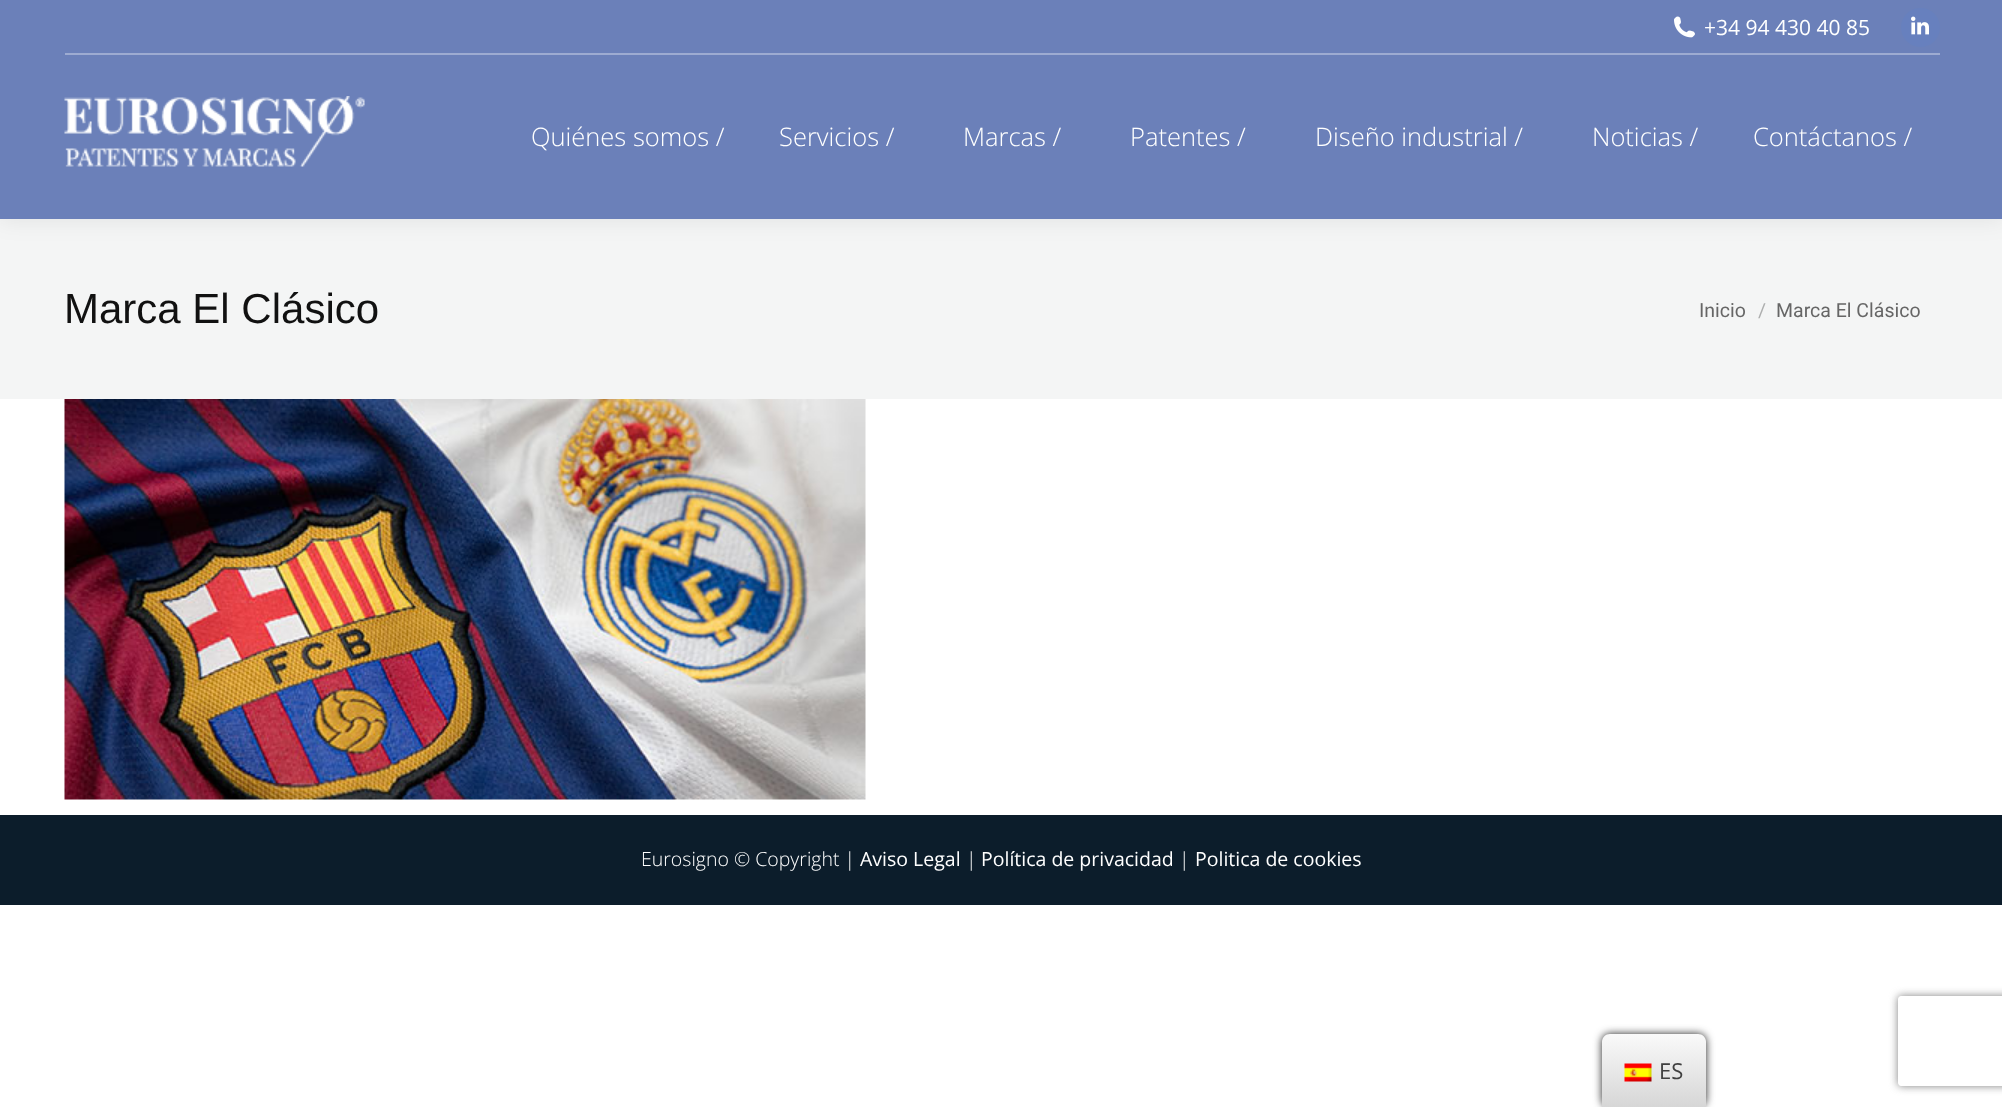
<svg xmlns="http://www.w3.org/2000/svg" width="2002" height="1107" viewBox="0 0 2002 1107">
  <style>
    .t1 { font: 21px Open Sans; fill: #fff; }
    .t2 { font: 300 25.5px Open Sans; fill: #fff; }
    .t3 { font: 42px Liberation Sans; fill: #111; }
    .t4 { font: 19.5px Roboto; fill: #666; }
    .t5 { font: 19.5px Roboto; fill: #adaeae; }
    .t6 { font: 300 19.5px Open Sans; fill: #fff; }
    .t7 { font: 19.5px Open Sans; fill: #fff; }
    .t8 { font: 22px Open Sans; fill: #404040; }
  </style>
  <defs>
    <linearGradient id="g1" gradientUnits="userSpaceOnUse" x1="1654" y1="1107" x2="1654" y2="1034"><stop offset="0" stop-color="#d6d6d6"/><stop offset="1" stop-color="#fafafa"/></linearGradient>
    <clipPath id="clip1"><path d="M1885 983H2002V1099H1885ZM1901 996H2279C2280.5 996 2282 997.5 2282 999V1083C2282 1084.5 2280.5 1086 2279 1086H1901C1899.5 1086 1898 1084.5 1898 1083V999C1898 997.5 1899.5 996 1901 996Z" clip-rule="evenodd"/></clipPath>
  </defs>
  <rect width="100%" height="100%" fill="#fff"/>
  <rect x="0" y="219" width="2002" height="180" fill="#f4f5f5"/>
  <rect x="-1" y="-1" width="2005" height="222" fill="#00000012" filter="blur(11px)"/>
  <rect x="0" y="0" width="2002" height="219" fill="#6b80b9"/>
  <image x="1674" y="16" width="21" height="22" href="images/1.png"/>
  <text x="1704" y="35" class="t1">+34 94 430 40 85</text>
  <circle cx="1920.5" cy="27.5" r="19.5" fill="#6780be"/>
  <image x="1911" y="16" width="18" height="19" href="images/2.png"/>
  <rect x="65" y="53" width="1875" height="2" fill="#9dabd1"/>
  <image x="64" y="96" width="301" height="71" href="images/3.png"/>
  <text x="531" y="146" class="t2">Quiénes somos /</text>
  <text x="779" y="146" class="t2">Servicios /</text>
  <text x="963" y="146" class="t2">Marcas /</text>
  <text x="1130" y="146" class="t2">Patentes /</text>
  <text x="1315" y="146" class="t2">Diseño industrial /</text>
  <text x="1592" y="146" class="t2">Noticias /</text>
  <text x="1753" y="146" class="t2">Contáctanos /</text>
  <text x="64" y="323" class="t3">Marca El Clásico</text>
  <text x="1699" y="317" class="t4">Inicio</text>
  <text x="1758" y="317" class="t5">/</text>
  <text x="1776" y="317" class="t4">Marca El Clásico</text>
  <image x="64" y="399" width="802" height="401" href="images/4.png"/>
  <rect x="0" y="815" width="2002" height="90" fill="#0c1d2b"/>
  <text x="641" y="866" class="t6">Eurosigno © Copyright |</text>
  <text x="860" y="866" class="t7">Aviso Legal</text>
  <text x="966" y="866" class="t6">|</text>
  <text x="981" y="866" class="t7">Política de privacidad</text>
  <text x="1179" y="866" class="t6">|</text>
  <text x="1195" y="866" class="t7">Politica de cookies</text>
  <rect x="1602" y="1034" width="104" height="73" rx="8" fill="#212121" filter="blur(4px)"/>
  <path d="M1610 1034H1698C1702.5 1034 1706 1037.5 1706 1042V1107H1602V1042C1602 1037.5 1605.5 1034 1610 1034Z" fill="url(#g1)"/>
  <image x="1624" y="1063" width="28" height="19" href="images/5.png"/>
  <text x="1659" y="1079" class="t8">ES</text>
  <g clip-path="url(#clip1)">
    <rect x="1898" y="996" width="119" height="90" rx="3" fill="#808080" filter="blur(4px)"/>
  </g>
</svg>
